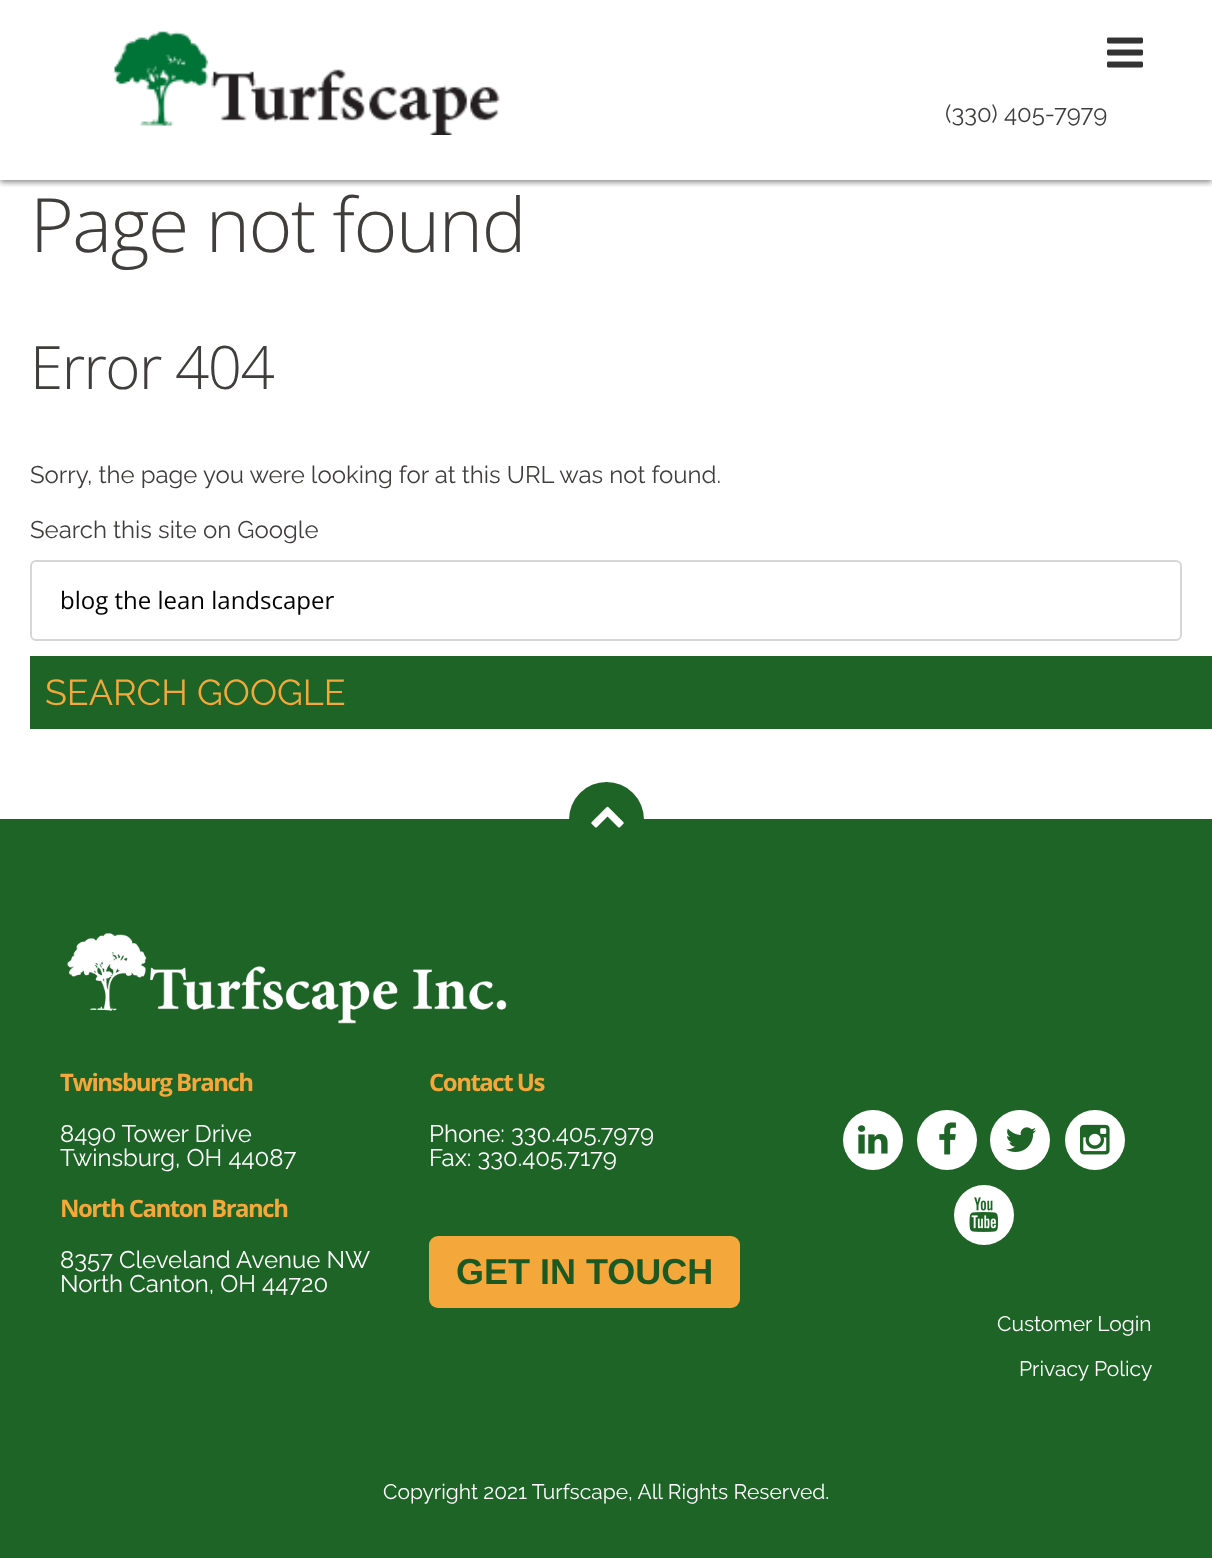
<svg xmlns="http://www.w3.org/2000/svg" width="1212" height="1558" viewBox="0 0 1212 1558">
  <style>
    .t1 { font: 24px Raleway; fill: #403d3d; }
    .t2 { font: 300 75px Open Sans; letter-spacing: -1.5px; fill: #403d3d; }
    .t3 { font: 300 60px Open Sans; letter-spacing: -1.5px; fill: #403d3d; }
    .t4 { font: 24px Open Sans; fill: #000; }
    .t5 { font: 36px Raleway; fill: #f4a83b; }
    .t6 { font: bold 24px Open Sans; letter-spacing: -1.5px; fill: #f4a83b; }
    .t7 { font: 24px Raleway; fill: #fff; }
    .t8 { font: bold 36px Liberation Sans; fill: #1c5922; }
    .t9 { font: 21px Raleway; fill: #fff; }
  </style>
  <defs>
    <clipPath id="clip1"><rect x="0" y="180" width="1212" height="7"/></clipPath>
  </defs>
  <rect width="100%" height="100%" fill="#fff"/>
  <g clip-path="url(#clip1)">
    <rect x="0" y="2" width="1212" height="180" fill="#00000080" filter="blur(3px)"/>
  </g>
  <image x="114" y="31" width="386" height="104" href="images/1.png"/>
  <image x="1107" y="37" width="36" height="31" href="images/2.png"/>
  <text x="945" y="122" class="t1">(330) 405-7979</text>
  <text x="30" y="252" class="t2">Page not found</text>
  <text x="30" y="389" class="t3">Error 404</text>
  <text x="30" y="483" class="t1">Sorry, the page you were looking for at this URL was not found.</text>
  <text x="30" y="538" class="t1">Search this site on Google</text>
  <rect x="31" y="561" width="1150" height="79" rx="5" fill="none" stroke="#d6d6d6" stroke-width="2"/>
  <text x="60" y="609" class="t4">blog the lean landscaper</text>
  <rect x="30" y="656" width="1182" height="73" fill="#1d6426"/>
  <text x="45" y="705" class="t5">SEARCH GOOGLE</text>
  <rect x="0" y="819" width="1212" height="739" fill="#1d6426"/>
  <circle cx="606.5" cy="819.5" r="37.5" fill="#1d6426"/>
  <image x="591" y="806" width="33" height="22" href="images/3.png"/>
  <image x="67" y="933" width="440" height="91" href="images/4.png"/>
  <text x="60" y="1091" class="t6">Twinsburg Branch</text>
  <text x="60" y="1142" class="t7">8490 Tower Drive</text>
  <text x="60" y="1166" class="t7">Twinsburg, OH 44087</text>
  <text x="60" y="1217" class="t6">North Canton Branch</text>
  <text x="60" y="1268" class="t7">8357 Cleveland Avenue NW</text>
  <text x="60" y="1292" class="t7">North Canton, OH 44720</text>
  <text x="429" y="1091" class="t6">Contact Us</text>
  <text x="429" y="1142" class="t7">Phone: 330.405.7979</text>
  <text x="429" y="1166" class="t7">Fax: 330.405.7179</text>
  <rect x="429" y="1236" width="311" height="72" rx="9" fill="#f4a83b"/>
  <text x="456" y="1284" class="t8">GET IN TOUCH</text>
  <circle cx="873" cy="1140" r="30" fill="#fff"/>
  <image x="858" y="1125" width="30" height="29" href="images/5.png"/>
  <circle cx="947" cy="1140" r="30" fill="#fff"/>
  <image x="939" y="1122" width="17" height="33" href="images/6.png"/>
  <circle cx="1020" cy="1140" r="30" fill="#fff"/>
  <image x="1006" y="1127" width="30" height="25" href="images/7.png"/>
  <circle cx="1095" cy="1140" r="30" fill="#fff"/>
  <image x="1080" y="1124" width="30" height="31" href="images/8.png"/>
  <circle cx="984" cy="1215" r="30" fill="#fff"/>
  <image x="969" y="1197" width="30" height="35" href="images/9.png"/>
  <text x="997" y="1331" class="t9">Customer Login</text>
  <text x="1019" y="1376" class="t9">Privacy Policy</text>
  <text x="383" y="1499" class="t9">Copyright 2021 Turfscape, All Rights Reserved.</text>
</svg>
